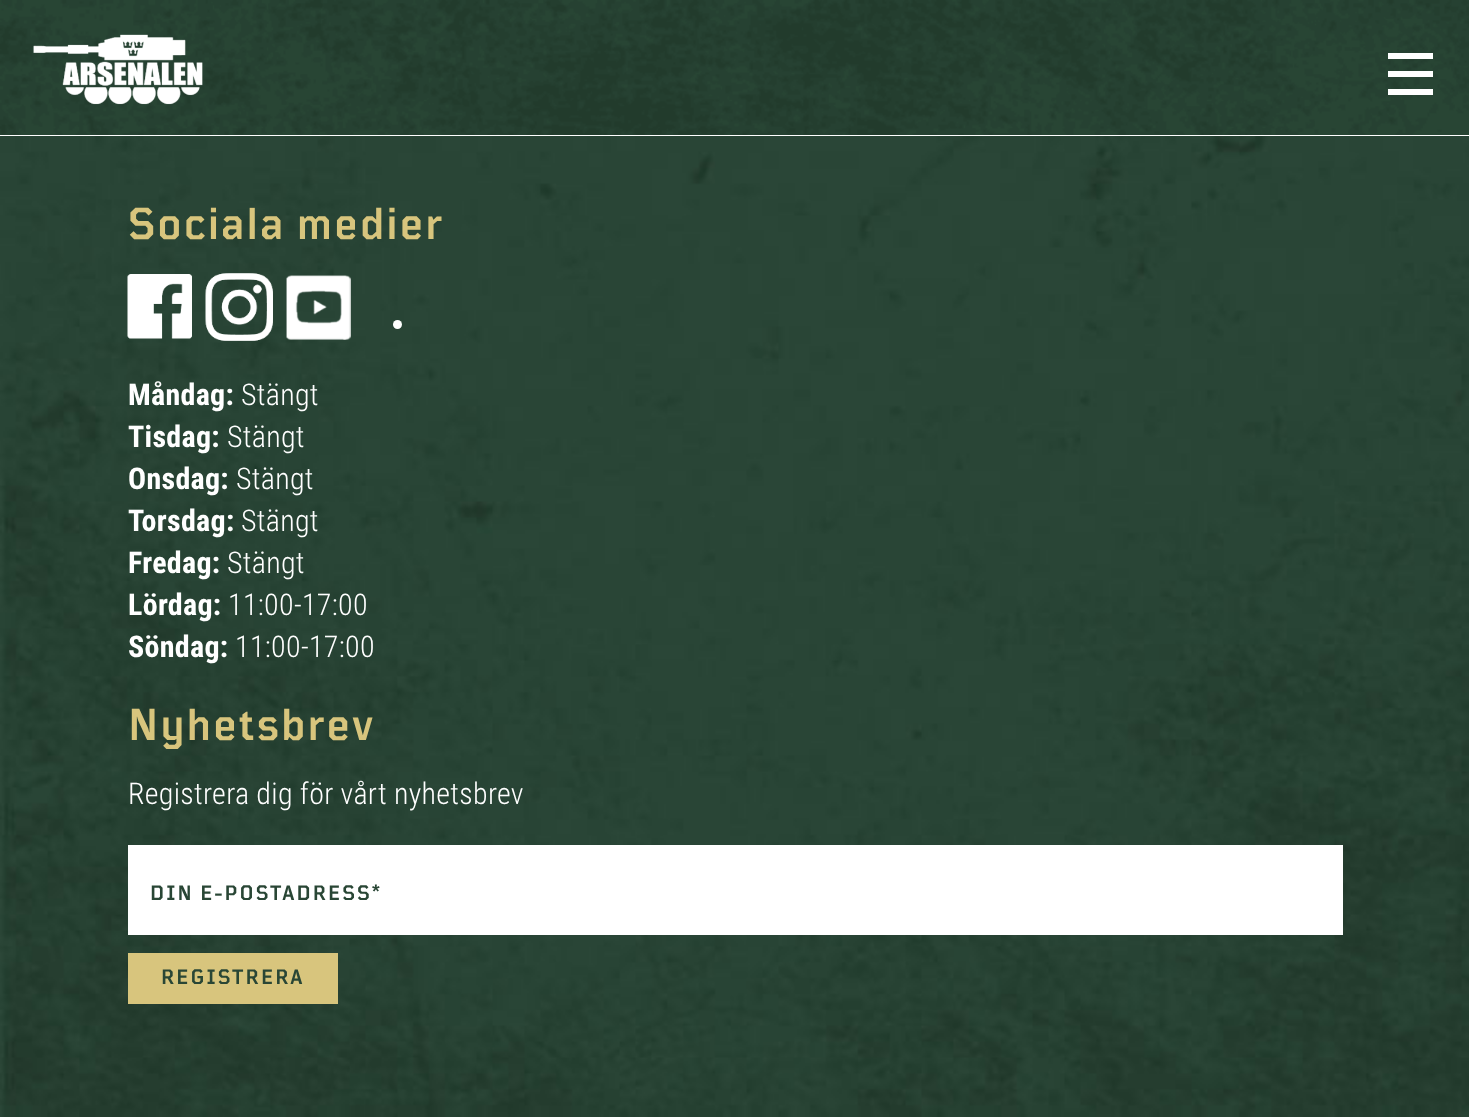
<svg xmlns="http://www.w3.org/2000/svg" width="1469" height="1117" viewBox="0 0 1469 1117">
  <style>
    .t1 { font: 600 45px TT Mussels; letter-spacing: 2.25px; fill: #d8c57d; }
    .t2 { font: bold 30px Roboto Condensed; letter-spacing: 0.3px; fill: #fff; }
    .t3 { font: 300 30px Roboto Condensed; letter-spacing: 0.3px; fill: #fff; }
    .t4 { font: 600 21px TT Mussels; letter-spacing: 2.1px; fill: #294635; }
  </style>
  <rect width="100%" height="100%" fill="#fff"/>
  <image x="0" y="0" width="1469" height="135" href="images/1.png"/>
  <image x="33" y="34" width="170" height="71" href="images/2.png"/>
  <rect x="1388" y="53" width="45" height="6" fill="#fff"/>
  <rect x="1388" y="71" width="45" height="6" fill="#fff"/>
  <rect x="1388" y="89" width="45" height="6" fill="#fff"/>
  <image x="0" y="136" width="1469" height="981" href="images/3.png"/>
  <text x="128" y="239" class="t1">Sociala medier</text>
  <image x="127" y="274" width="65" height="65" href="images/4.png"/>
  <image x="205" y="273" width="68" height="68" href="images/5.png"/>
  <image x="286" y="275" width="65" height="65" href="images/6.png"/>
  <circle cx="397.5" cy="324.5" r="4.5" fill="#fff"/>
  <text x="128" y="405" class="t2">Måndag:</text>
  <text x="241" y="405" class="t3">Stängt</text>
  <text x="128" y="447" class="t2">Tisdag:</text>
  <text x="227" y="447" class="t3">Stängt</text>
  <text x="128" y="489" class="t2">Onsdag:</text>
  <text x="236" y="489" class="t3">Stängt</text>
  <text x="128" y="531" class="t2">Torsdag:</text>
  <text x="241" y="531" class="t3">Stängt</text>
  <text x="128" y="573" class="t2">Fredag:</text>
  <text x="227" y="573" class="t3">Stängt</text>
  <text x="128" y="615" class="t2">Lördag:</text>
  <text x="228" y="615" class="t3">11:00-17:00</text>
  <text x="128" y="657" class="t2">Söndag:</text>
  <text x="235" y="657" class="t3">11:00-17:00</text>
  <text x="128" y="740" class="t1">Nyhetsbrev</text>
  <text x="128" y="804" class="t3">Registrera dig för vårt nyhetsbrev</text>
  <rect x="128" y="845" width="1215" height="90" fill="#fff"/>
  <text x="150" y="900" class="t4">DIN E-POSTADRESS*</text>
  <rect x="128" y="953" width="210" height="51" fill="#d8c57d"/>
  <text x="161" y="984" class="t4">REGISTRERA</text>
</svg>
